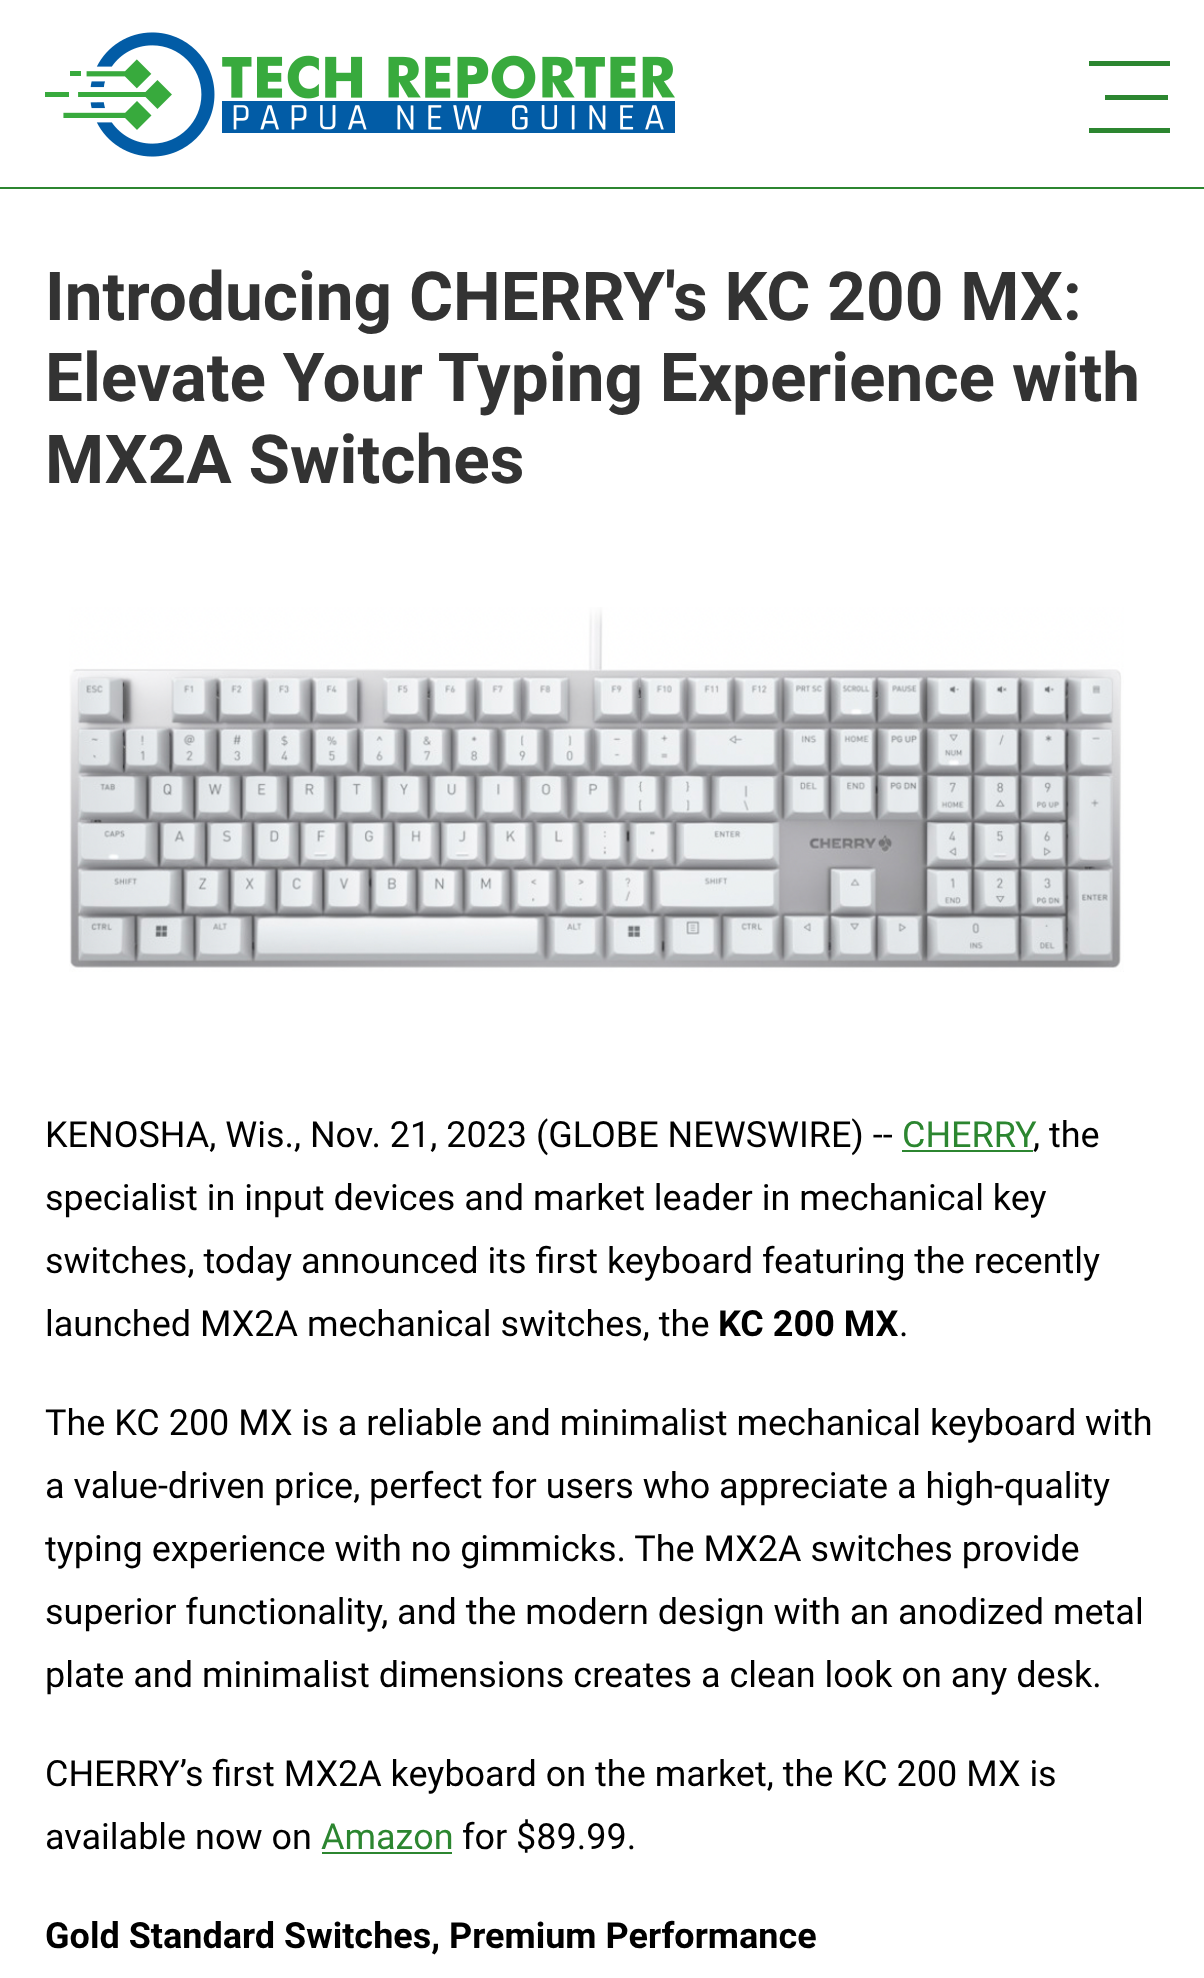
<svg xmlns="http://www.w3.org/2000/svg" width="1204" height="1978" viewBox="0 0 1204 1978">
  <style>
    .t1 { font: bold 67.5px Roboto; fill: #333; }
    .t2 { font: 36px Roboto; fill: #000; }
    .t3 { font: 36px Roboto; fill: #2c8630; }
    .t4 { font: bold 36px Roboto; fill: #000; }
  </style>
  <rect width="100%" height="100%" fill="#fff"/>
  <image x="45" y="32" width="630" height="125" href="images/1.png"/>
  <rect x="1089" y="61" width="81" height="5" fill="#2c8630"/>
  <rect x="1105" y="95" width="63" height="5" fill="#2c8630"/>
  <rect x="1089" y="128" width="81" height="5" fill="#2c8630"/>
  <rect x="0" y="187" width="1204" height="2" fill="#2c8630"/>
  <text x="45" y="320" class="t1">Introducing CHERRY's KC 200 MX:</text>
  <text x="45" y="401" class="t1">Elevate Your Typing Experience with</text>
  <text x="45" y="483" class="t1">MX2A Switches</text>
  <image x="69" y="607" width="1055" height="365" href="images/2.png"/>
  <text x="45" y="1147" class="t2">KENOSHA, Wis., Nov. 21, 2023 (GLOBE NEWSWIRE) --</text>
  <text x="902" y="1147" class="t3">CHERRY</text>
  <rect x="902" y="1150" width="131" height="2" fill="#2c8630"/>
  <text x="1033" y="1147" class="t2">, the</text>
  <text x="45" y="1210" class="t2">specialist in input devices and market leader in mechanical key</text>
  <text x="45" y="1273" class="t2">switches, today announced its first keyboard featuring the recently</text>
  <text x="45" y="1336" class="t2">launched MX2A mechanical switches, the</text>
  <text x="718" y="1336" class="t4">KC 200 MX</text>
  <text x="899" y="1336" class="t2">.</text>
  <text x="45" y="1435" class="t2">The KC 200 MX is a reliable and minimalist mechanical keyboard with</text>
  <text x="45" y="1498" class="t2">a value-driven price, perfect for users who appreciate a high-quality</text>
  <text x="45" y="1561" class="t2">typing experience with no gimmicks. The MX2A switches provide</text>
  <text x="45" y="1624" class="t2">superior functionality, and the modern design with an anodized metal</text>
  <text x="45" y="1687" class="t2">plate and minimalist dimensions creates a clean look on any desk.</text>
  <text x="45" y="1786" class="t2">CHERRY’s first MX2A keyboard on the market, the KC 200 MX is</text>
  <text x="45" y="1849" class="t2">available now on</text>
  <text x="321" y="1849" class="t3">Amazon</text>
  <rect x="322" y="1852" width="130" height="2" fill="#2c8630"/>
  <text x="462" y="1849" class="t2">for $89.99.</text>
  <text x="45" y="1948" class="t4">Gold Standard Switches, Premium Performance</text>
</svg>
